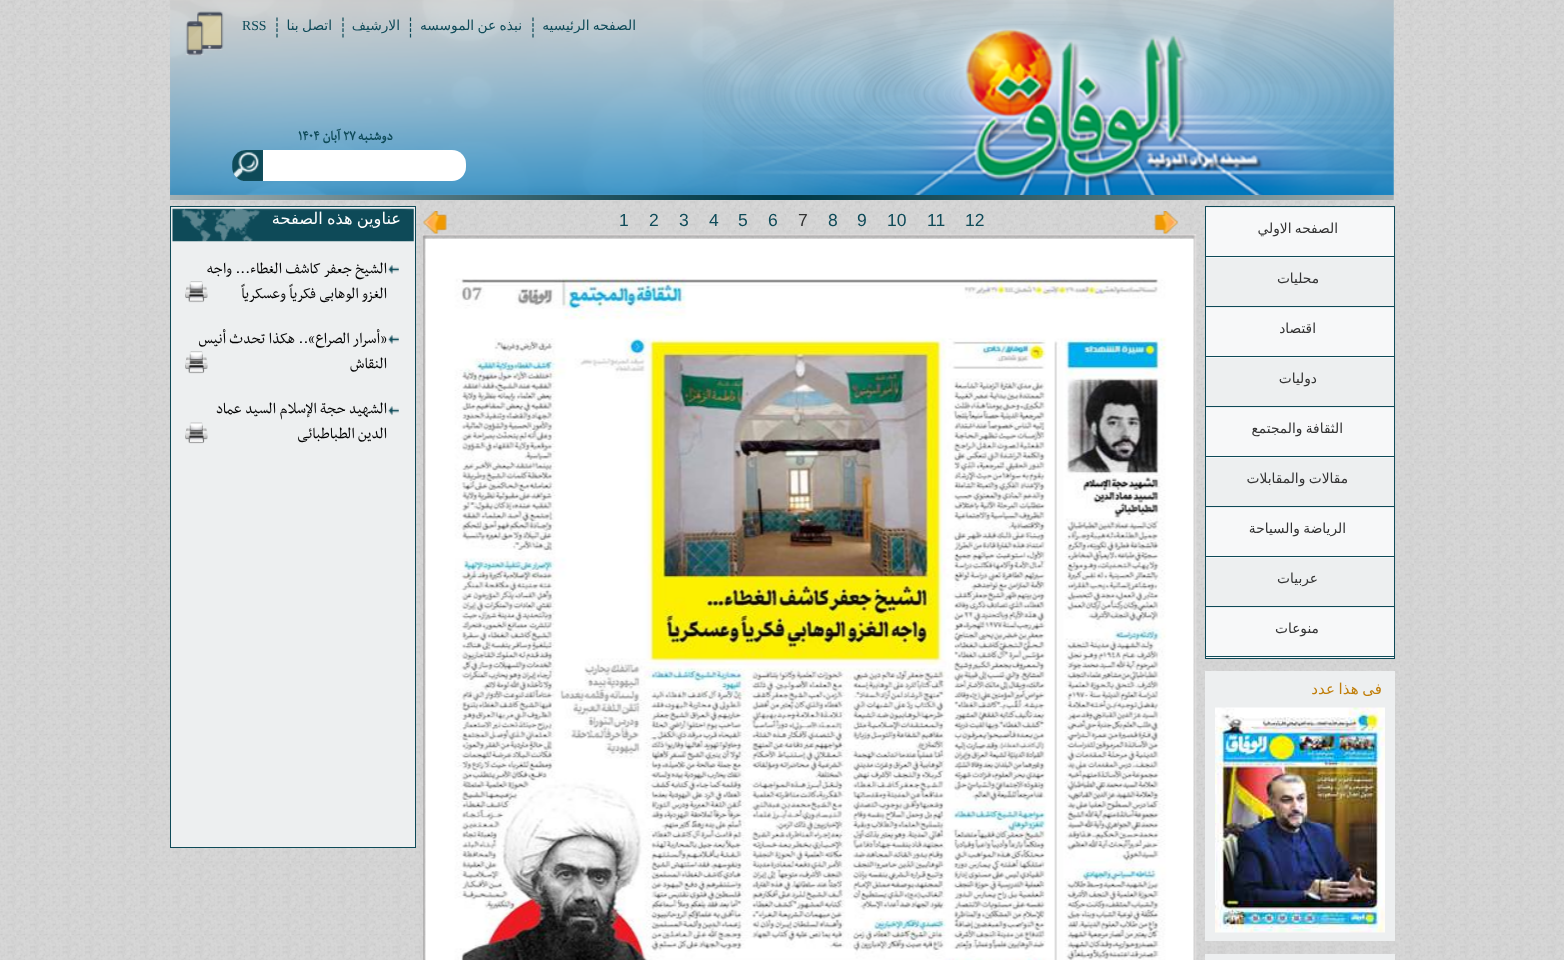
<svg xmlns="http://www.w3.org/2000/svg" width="1564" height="960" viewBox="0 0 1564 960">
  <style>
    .t1 { font: 13.75px DejaVu Sans; direction: rtl; fill: #0e4a58; }
    .t2 { font: 13.75px Liberation Serif; fill: #0e4a58; }
    .t3 { font: bold 15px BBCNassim; direction: rtl; fill: #0e4a58; }
    .t4 { font: bold 15px BBCNassim; fill: #0e4a58; }
    .t5 { font: 17.5px Liberation Sans; fill: #0e4a58; }
    .t6 { font: 17.5px Liberation Sans; fill: #323232; }
    .t7 { font: 16.25px DejaVu Sans; direction: rtl; fill: #fff; }
    .t8 { font: 17.5px BBCNassim; direction: rtl; fill: #000; }
    .t9 { font: 13.75px DejaVu Sans; direction: rtl; fill: #323232; }
    .t10 { font: 15px DejaVu Sans; direction: rtl; fill: #c07d08; }
  </style>
  <rect width="100%" height="100%" fill="#fff"/>
  <image x="0" y="0" width="1564" height="960" href="images/1.png"/>
  <image x="170" y="0" width="1224" height="195" href="images/2.png"/>
  <text x="636" y="30" word-spacing="-1" class="t1">الصفحه الرئیسیه</text>
  <path d="M533 17.5V37.5" fill="none" stroke="#0e4a58" stroke-width="1.2" stroke-dasharray="3.75 1.66"/>
  <text x="522" y="30" word-spacing="-1" class="t1">نبذه عن الموسسه</text>
  <path d="M410.5 17.5V37.5" fill="none" stroke="#0e4a58" stroke-width="1.2" stroke-dasharray="3.75 1.66"/>
  <text x="400" y="30" class="t1">الارشیف</text>
  <path d="M343 17.5V37.5" fill="none" stroke="#0e4a58" stroke-width="1.2" stroke-dasharray="3.75 1.66"/>
  <text x="332" y="30" word-spacing="-1" class="t1">اتصل بنا</text>
  <path d="M277 17.5V37.5" fill="none" stroke="#0e4a58" stroke-width="1.2" stroke-dasharray="3.75 1.66"/>
  <text x="242" y="30" class="t2">RSS</text>
  <image x="185" y="11" width="39" height="45" href="images/3.png"/>
  <text x="393" y="140" class="t3">دوشنبه</text>
  <text x="343" y="140" class="t4">۲۷</text>
  <text x="340" y="140" class="t3">آبان</text>
  <text x="298" y="140" class="t4">۱۴۰۴</text>
  <rect x="233" y="150" width="233" height="31" rx="14" fill="#fff"/>
  <image x="232" y="150" width="31" height="31" href="images/4.png"/>
  <image x="170" y="195" width="1224" height="5" href="images/5.png"/>
  <image x="1154" y="211" width="24" height="23" href="images/6.png"/>
  <text x="965" y="226" class="t5">12</text>
  <text x="927" y="226" class="t5">11</text>
  <text x="887" y="226" class="t5">10</text>
  <text x="857" y="226" class="t5">9</text>
  <text x="828" y="226" class="t5">8</text>
  <text x="798" y="226" class="t6">7</text>
  <text x="768" y="226" class="t5">6</text>
  <text x="738" y="226" class="t5">5</text>
  <text x="709" y="226" class="t5">4</text>
  <text x="679" y="226" class="t5">3</text>
  <text x="649" y="226" class="t5">2</text>
  <text x="619" y="226" class="t5">1</text>
  <image x="423" y="211" width="24" height="23" href="images/7.png"/>
  <image x="423" y="234" width="774" height="726" href="images/8.png"/>
  <image x="424" y="238" width="770" height="722" href="images/9.png"/>
  <rect x="170.5" y="206.5" width="245" height="641" fill="#edeff0" stroke="#0e4a58"/>
  <image x="172" y="208" width="242" height="34" href="images/10.png"/>
  <text x="401" y="224" word-spacing="-1" class="t7">عناوین هذه الصفحة</text>
  <image x="388" y="265" width="11" height="9" href="images/11.png"/>
  <text x="387" y="273" class="t8">الشیخ جعفر کاشف الغطاء... واجه</text>
  <text x="387" y="298" class="t8">الغزو الوهابی فکریاً وعسکریاً</text>
  <image x="185" y="281" width="23" height="22" href="images/12.png"/>
  <image x="388" y="335" width="11" height="9" href="images/11.png"/>
  <text x="387" y="343" class="t8">«أسرار الصراع».. هکذا تحدث أنیس</text>
  <text x="387" y="368" class="t8">النقاش</text>
  <image x="185" y="351" width="23" height="23" href="images/13.png"/>
  <image x="388" y="406" width="11" height="9" href="images/14.png"/>
  <text x="387" y="413" class="t8">الشهید حجة الإسلام السید عماد</text>
  <text x="387" y="438" class="t8">الدین الطباطبائی</text>
  <image x="185" y="422" width="23" height="22" href="images/15.png"/>
  <rect x="1206" y="207" width="188" height="401" fill="#edeff0"/>
  <rect x="1205.5" y="206.5" width="189" height="452" fill="none" stroke="#0e4a58"/>
  <rect x="1206" y="208" width="188" height="50" fill="#f7f8f9"/>
  <rect x="1206" y="256" width="188" height="1" fill="#0e4a58"/>
  <text x="1338" y="233" word-spacing="-1" class="t9">الصفحه الاولي</text>
  <rect x="1206" y="306" width="188" height="1" fill="#0e4a58"/>
  <text x="1319" y="283" class="t9">محلیات</text>
  <rect x="1206" y="308" width="188" height="50" fill="#f7f8f9"/>
  <rect x="1206" y="356" width="188" height="1" fill="#0e4a58"/>
  <text x="1316" y="333" class="t9">اقتصاد</text>
  <rect x="1206" y="406" width="188" height="1" fill="#0e4a58"/>
  <text x="1317" y="383" class="t9">دولیات</text>
  <rect x="1206" y="408" width="188" height="50" fill="#f7f8f9"/>
  <rect x="1206" y="456" width="188" height="1" fill="#0e4a58"/>
  <text x="1343" y="433" word-spacing="-1" class="t9">الثقافة والمجتمع</text>
  <rect x="1206" y="506" width="188" height="1" fill="#0e4a58"/>
  <text x="1348" y="483" word-spacing="-1" class="t9">مقالات والمقابلات</text>
  <rect x="1206" y="508" width="188" height="50" fill="#f7f8f9"/>
  <rect x="1206" y="556" width="188" height="1" fill="#0e4a58"/>
  <text x="1346" y="533" word-spacing="-1" class="t9">الرياضة والسياحة</text>
  <rect x="1206" y="606" width="188" height="1" fill="#0e4a58"/>
  <text x="1318" y="583" class="t9">عربیات</text>
  <rect x="1206" y="608" width="188" height="50" fill="#f7f8f9"/>
  <rect x="1206" y="656" width="188" height="1" fill="#0e4a58"/>
  <text x="1319" y="633" class="t9">منوعات</text>
  <rect x="1205" y="671" width="190" height="270" fill="#edeff0"/>
  <text x="1382" y="694" word-spacing="-1" class="t10">فی هذا عدد</text>
  <image x="1215" y="707" width="170" height="226" href="images/16.png"/>
  <rect x="1205" y="954" width="190" height="6" fill="#edeff0"/>
</svg>
